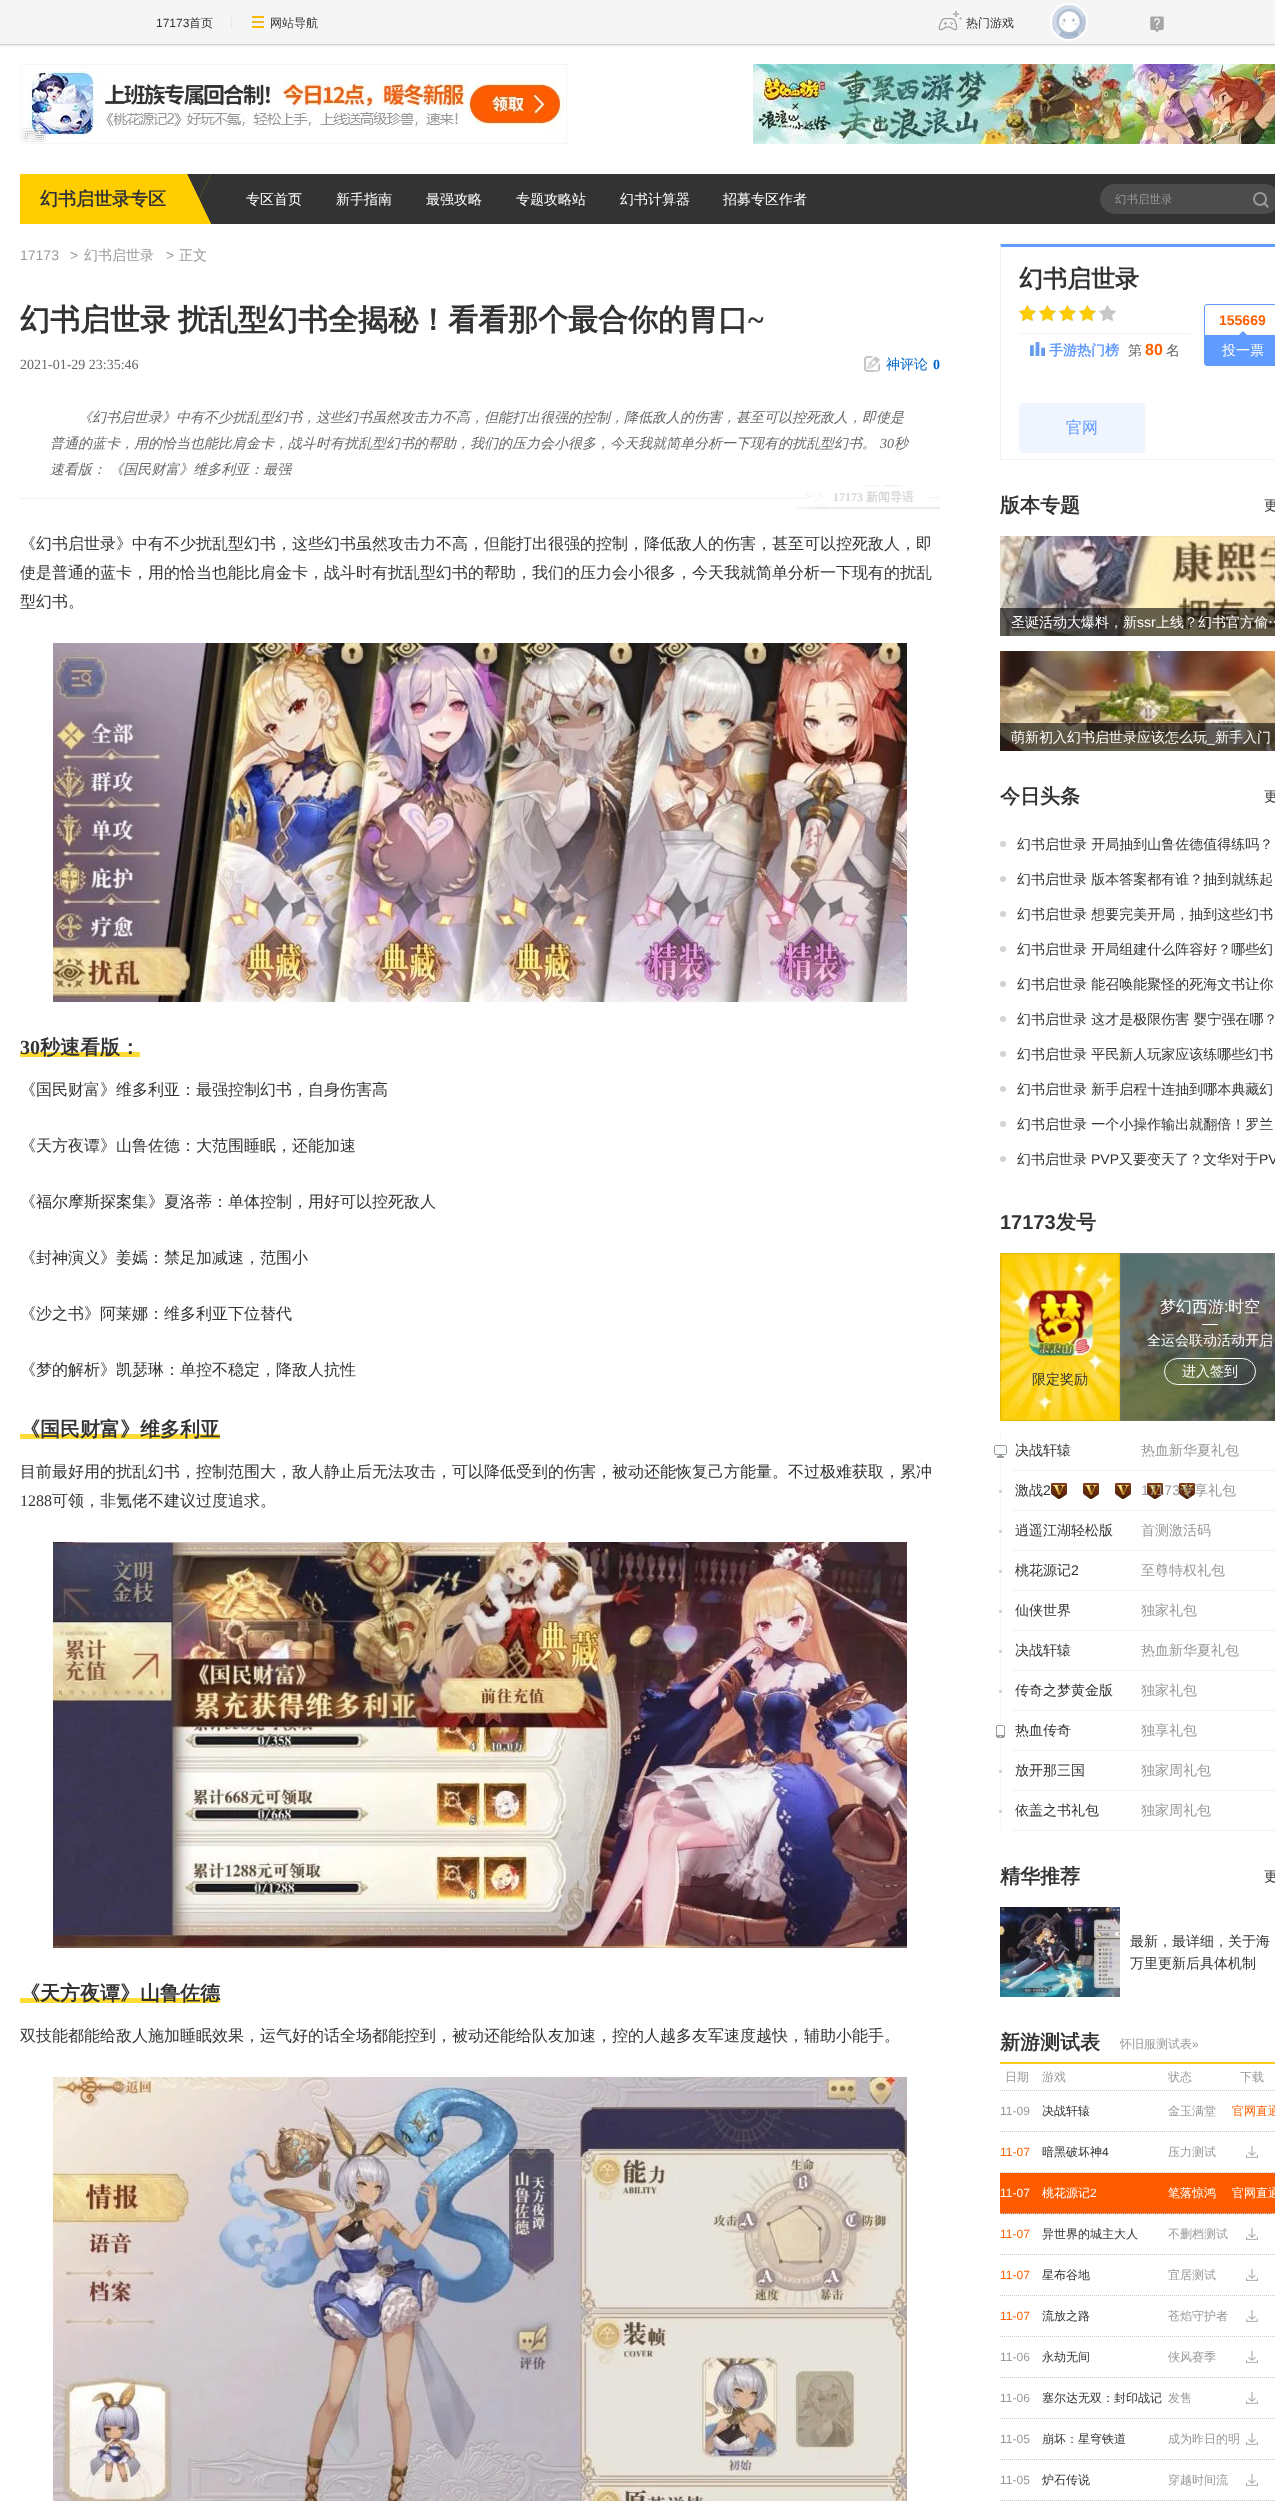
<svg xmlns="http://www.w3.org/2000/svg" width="1275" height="2501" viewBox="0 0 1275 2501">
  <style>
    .t1 { font: 12px Liberation Sans; fill: #333; }
    .t2 { font: 500 12px WenQuanYi Zen Hei; fill: #333; }
    .t3 { font: bold 18px WenQuanYi Zen Hei; fill: #333; }
    .t4 { font: 500 14px WenQuanYi Zen Hei; fill: #fff; }
    .t5 { font: 500 11.5px WenQuanYi Zen Hei; fill: #999; }
    .t6 { font: 14px Liberation Sans; fill: #999; }
    .t7 { font: 500 14px WenQuanYi Zen Hei; fill: #999; }
    .t8 { font: bold 30px WenQuanYi Zen Hei; fill: #333; }
    .t9 { font: bold 30px Liberation Serif; fill: #333; }
    .t10 { font: 14px Liberation Serif; fill: #666; }
    .t11 { font: 500 14px WenQuanYi Zen Hei; fill: #06c; }
    .t12 { font: bold 14px Liberation Serif; fill: #06c; }
    .t13 { font: italic 500 14px WenQuanYi Zen Hei; fill: #666; }
    .t14 { font: italic 14px Liberation Serif; fill: #666; }
    .t15 { font: bold 12px Liberation Serif; fill: #d7d7d7; }
    .t16 { font: bold 12px WenQuanYi Zen Hei; fill: #d7d7d7; }
    .t17 { font: 500 16px WenQuanYi Zen Hei; fill: #333; }
    .t18 { font: bold 20px Liberation Serif; fill: #333; }
    .t19 { font: bold 20px WenQuanYi Zen Hei; fill: #333; }
    .t20 { font: 16px Liberation Serif; fill: #333; }
    .t21 { font: bold 24px WenQuanYi Zen Hei; fill: #333; }
    .t22 { font: bold 14px WenQuanYi Zen Hei; fill: #609bff; }
    .t23 { font: 500 14px WenQuanYi Zen Hei; fill: #666; }
    .t24 { font: bold 16px Liberation Sans; fill: #ff6000; }
    .t25 { font: bold 14px Liberation Sans; fill: #ff6000; }
    .t26 { font: 500 16px WenQuanYi Zen Hei; fill: #609bff; }
    .t27 { font: 500 14px WenQuanYi Zen Hei; fill: #333; }
    .t28 { font: 14px Liberation Sans; fill: #fff; }
    .t29 { font: 14px Liberation Sans; fill: #333; }
    .t30 { font: bold 20px Liberation Sans; fill: #333; }
    .t31 { font: 500 16px WenQuanYi Zen Hei; fill: #fff; }
    .t32 { font: 16px Liberation Sans; fill: #fff; }
    .t33 { font: 500 12px WenQuanYi Zen Hei; fill: #999; }
    .t34 { font: 12px Liberation Sans; fill: #999; }
    .t35 { font: 500 12px WenQuanYi Zen Hei; fill: #ff6000; }
    .t36 { font: 12px Liberation Sans; fill: #ff6000; }
    .t37 { font: 12px Liberation Sans; fill: #fff; }
    .t38 { font: 500 12px WenQuanYi Zen Hei; fill: #fff; }
  </style>
  <rect width="100%" height="100%" fill="#fff"/>
  <rect x="1120" y="1253" width="155" height="168" fill="#808080"/>
  <rect x="0" y="1" width="1275" height="45" fill="#e8e6e6" filter="blur(1px)"/>
  <rect x="0" y="0" width="1275" height="44" fill="#f5f5f5"/>
  <rect x="0" y="44" width="1275" height="1" fill="#d2d2d2"/>
  <text x="156" y="27" class="t1">17173</text>
  <text x="189" y="27" class="t2">首页</text>
  <rect x="231" y="17" width="1" height="12" fill="#e8e8e8"/>
  <image x="252" y="16" width="12" height="12" href="images/1.png"/>
  <text x="270" y="27" class="t2">网站导航</text>
  <image x="938" y="11" width="24" height="20" href="images/2.png"/>
  <text x="966" y="27" class="t2">热门游戏</text>
  <circle cx="1069" cy="22" r="18" fill="none" stroke="#fff" stroke-width="2"/>
  <image x="1052" y="5" width="34" height="34" href="images/3.png"/>
  <image x="1150" y="16" width="14" height="16" href="images/4.png"/>
  <image x="20" y="64" width="547" height="80" href="images/5.png"/>
  <image x="22" y="128" width="24" height="14" href="images/6.png"/>
  <image x="753" y="64" width="522" height="80" href="images/7.png"/>
  <image x="1274" y="130" width="1" height="10" href="images/8.png"/>
  <rect x="211" y="174" width="1064" height="50" fill="#333"/>
  <rect x="20" y="174" width="191" height="50" fill="#ffcd00"/>
  <text x="40" y="205" class="t3">幻书启世录专区</text>
  <path d="M187 174H211L199 199Z" fill="#333"/>
  <path d="M211 174V224L199 199Z" fill="#333"/>
  <path d="M211 224H187L199 199Z" fill="#ffcd00"/>
  <path d="M187 224V174L199 199Z" fill="#ffcd00"/>
  <text x="246" y="204" class="t4">专区首页</text>
  <text x="336" y="204" class="t4">新手指南</text>
  <text x="426" y="204" class="t4">最强攻略</text>
  <text x="516" y="204" class="t4">专题攻略站</text>
  <text x="620" y="204" class="t4">幻书计算器</text>
  <text x="723" y="204" class="t4">招募专区作者</text>
  <rect x="1100" y="184" width="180" height="30" rx="15" fill="#4d4c4c"/>
  <text x="1115" y="203" class="t5">幻书启世录</text>
  <circle cx="1260" cy="199" r="6" fill="none" stroke="#999" stroke-width="2"/>
  <path d="M1263 203.5L1264.5 202L1269 206.5L1267.5 208Z" fill="#999"/>
  <text x="20" y="260" class="t6">17173</text>
  <text x="70" y="260" class="t6">&gt;</text>
  <text x="84" y="260" class="t7">幻书启世录</text>
  <text x="166" y="260" class="t6">&gt;</text>
  <text x="179" y="260" class="t7">正文</text>
  <text x="20" y="330" word-spacing="-1" class="t8">幻书启世录 扰乱型幻书全揭秘！看看那个最合你的胃口</text>
  <text x="748" y="330" class="t9">~</text>
  <text x="20" y="369" class="t10">2021-01-29 23:35:46</text>
  <image x="864" y="356" width="16" height="16" href="images/9.png"/>
  <text x="886" y="369" class="t11">神评论</text>
  <text x="933" y="369" class="t12">0</text>
  <rect x="20" y="498" width="777" height="1" fill="#f1f1f1"/>
  <text x="78" y="422" class="t13">《幻书启世录》中有不少扰乱型幻书，这些幻书虽然攻击力不高，但能打出很强的控制，降低敌人的伤害，甚至可以控死敌人，即使是</text>
  <text x="50" y="448" class="t13">普通的蓝卡，用的恰当也能比肩金卡，战斗时有扰乱型幻书的帮助，我们的压力会小很多，今天我就简单分析一下现有的扰乱型幻书。</text>
  <text x="880" y="448" class="t14">30</text>
  <text x="894" y="448" class="t13">秒</text>
  <text x="50" y="474" word-spacing="-1" class="t13">速看版： 《国民财富》维多利亚：最强</text>
  <image x="797" y="485" width="143" height="24" href="images/10.png"/>
  <text x="833" y="501" class="t15">17173</text>
  <text x="866" y="501" class="t16">新闻导语</text>
  <text x="20" y="549" class="t17">《幻书启世录》中有不少扰乱型幻书，这些幻书虽然攻击力不高，但能打出很强的控制，降低敌人的伤害，甚至可以控死敌人，即</text>
  <text x="20" y="578" class="t17">使是普通的蓝卡，用的恰当也能比肩金卡，战斗时有扰乱型幻书的帮助，我们的压力会小很多，今天我就简单分析一下现有的扰乱</text>
  <text x="20" y="607" class="t17">型幻书。</text>
  <image x="53" y="643" width="854" height="359" href="images/11.png"/>
  <rect x="20" y="1052" width="120" height="5" fill="#ffdb33"/>
  <text x="20" y="1054" class="t18">30</text>
  <text x="40" y="1054" class="t19">秒速看版：</text>
  <text x="20" y="1095" class="t17">《国民财富》维多利亚：最强控制幻书，自身伤害高</text>
  <text x="20" y="1151" class="t17">《天方夜谭》山鲁佐德：大范围睡眠，还能加速</text>
  <text x="20" y="1207" class="t17">《福尔摩斯探案集》夏洛蒂：单体控制，用好可以控死敌人</text>
  <text x="20" y="1263" class="t17">《封神演义》姜嫣：禁足加减速，范围小</text>
  <text x="20" y="1319" class="t17">《沙之书》阿莱娜：维多利亚下位替代</text>
  <text x="20" y="1375" class="t17">《梦的解析》凯瑟琳：单控不稳定，降敌人抗性</text>
  <rect x="20" y="1434" width="200" height="5" fill="#ffdb33"/>
  <text x="20" y="1436" class="t19">《国民财富》维多利亚</text>
  <text x="20" y="1477" class="t17">目前最好用的扰乱幻书，控制范围大，敌人静止后无法攻击，可以降低受到的伤害，被动还能恢复己方能量。不过极难获取，累冲</text>
  <text x="20" y="1506" class="t20">1288</text>
  <text x="52" y="1506" class="t17">可领，非氪佬不建议过度追求。</text>
  <image x="53" y="1542" width="854" height="406" href="images/12.png"/>
  <rect x="20" y="1998" width="200" height="5" fill="#ffdb33"/>
  <text x="20" y="2000" class="t19">《天方夜谭》山鲁佐德</text>
  <text x="20" y="2041" class="t17">双技能都能给敌人施加睡眠效果，运气好的话全场都能控到，被动还能给队友加速，控的人越多友军速度越快，辅助小能手。</text>
  <image x="53" y="2077" width="854" height="424" href="images/13.png"/>
  <path d="M1000 244H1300L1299 247H1001Z" fill="#609bff"/>
  <rect x="1000" y="459" width="275" height="1" fill="#f2f2f2"/>
  <path d="M1000 460V244L1001 247V459Z" fill="#f2f2f2"/>
  <text x="1019" y="287" class="t21">幻书启世录</text>
  <image x="1019" y="305" width="97" height="16" href="images/14.png"/>
  <image x="1019" y="305" width="77" height="16" href="images/15.png"/>
  <rect x="1019" y="333" width="172" height="1" fill="#f2f2f2"/>
  <image x="1030" y="342" width="15" height="14" href="images/16.png"/>
  <text x="1049" y="355" class="t22">手游热门榜</text>
  <text x="1128" y="355" class="t23">第</text>
  <text x="1145" y="355" class="t24">80</text>
  <text x="1166" y="355" class="t23">名</text>
  <rect x="1204.5" y="304.5" width="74" height="61" rx="2.5" fill="none" stroke="#609bff"/>
  <text x="1219" y="325" class="t25">155669</text>
  <rect x="1205" y="335" width="70" height="30" fill="#609bff"/>
  <path d="M1247 335H1239L1243 331Z" fill="#609bff"/>
  <text x="1222" y="355" class="t4">投一票</text>
  <rect x="1019" y="403" width="126" height="50" rx="4" fill="#eff4fd"/>
  <text x="1066" y="433" class="t26">官网</text>
  <text x="1000" y="512" class="t19">版本专题</text>
  <text x="1264" y="510" class="t27">更</text>
  <image x="1000" y="536" width="275" height="100" href="images/17.png"/>
  <rect x="1000" y="608" width="275" height="28" fill="#00000099"/>
  <text x="1011" y="627" class="t4">圣诞活动大爆料，新</text>
  <text x="1137" y="627" class="t28">ssr</text>
  <text x="1156" y="627" class="t4">上线？幻书官方偷…</text>
  <image x="1000" y="651" width="275" height="100" href="images/18.png"/>
  <rect x="1000" y="723" width="275" height="28" fill="#00000099"/>
  <text x="1011" y="742" class="t4">萌新初入幻书启世录应该怎么玩</text>
  <text x="1207" y="742" class="t28">_</text>
  <text x="1215" y="742" class="t4">新手入门</text>
  <text x="1000" y="803" class="t19">今日头条</text>
  <text x="1264" y="801" class="t27">更</text>
  <circle cx="1003" cy="844" r="3" fill="#d3d3d3"/>
  <text x="1017" y="849" class="t27">幻书启世录 开局抽到山鲁佐德值得练吗？</text>
  <circle cx="1003" cy="879" r="3" fill="#d3d3d3"/>
  <text x="1017" y="884" class="t27">幻书启世录 版本答案都有谁？抽到就练起</text>
  <circle cx="1003" cy="914" r="3" fill="#d3d3d3"/>
  <text x="1017" y="919" class="t27">幻书启世录 想要完美开局，抽到这些幻书</text>
  <circle cx="1003" cy="949" r="3" fill="#d3d3d3"/>
  <text x="1017" y="954" class="t27">幻书启世录 开局组建什么阵容好？哪些幻</text>
  <circle cx="1003" cy="984" r="3" fill="#d3d3d3"/>
  <text x="1017" y="989" class="t27">幻书启世录 能召唤能聚怪的死海文书让你</text>
  <circle cx="1003" cy="1019" r="3" fill="#d3d3d3"/>
  <text x="1017" y="1024" class="t27">幻书启世录 这才是极限伤害 婴宁强在哪？</text>
  <circle cx="1003" cy="1054" r="3" fill="#d3d3d3"/>
  <text x="1017" y="1059" class="t27">幻书启世录 平民新人玩家应该练哪些幻书</text>
  <circle cx="1003" cy="1089" r="3" fill="#d3d3d3"/>
  <text x="1017" y="1094" class="t27">幻书启世录 新手启程十连抽到哪本典藏幻</text>
  <circle cx="1003" cy="1124" r="3" fill="#d3d3d3"/>
  <text x="1017" y="1129" class="t27">幻书启世录 一个小操作输出就翻倍！罗兰</text>
  <circle cx="1003" cy="1159" r="3" fill="#d3d3d3"/>
  <text x="1017" y="1164" class="t27">幻书启世录</text>
  <text x="1091" y="1164" class="t29">PVP</text>
  <text x="1119" y="1164" class="t27">又要变天了？文华对于</text>
  <text x="1259" y="1164" class="t29">PV</text>
  <text x="1000" y="1229" class="t30">17173</text>
  <text x="1056" y="1229" class="t19">发号</text>
  <image x="1000" y="1253" width="120" height="168" href="images/19.png"/>
  <image x="1028" y="1290" width="66" height="67" href="images/20.png"/>
  <text x="1032" y="1384" class="t27">限定奖励</text>
  <image x="1120" y="1253" width="155" height="168" href="images/21.png"/>
  <text x="1160" y="1312" class="t31">梦幻西游</text>
  <text x="1224" y="1312" class="t32">:</text>
  <text x="1228" y="1312" class="t31">时空</text>
  <rect x="1202" y="1324" width="16" height="1" fill="#fff"/>
  <text x="1147" y="1345" class="t4">全运会联动活动开启</text>
  <rect x="1164.5" y="1358.5" width="91" height="26" rx="13" fill="none" stroke="#fff"/>
  <text x="1182" y="1376" class="t4">进入签到</text>
  <rect x="1000" y="1431" width="1" height="400" fill="#f8f8f8"/>
  <image x="994" y="1445" width="13" height="13" href="images/22.png"/>
  <rect x="1012" y="1470" width="263" height="1" fill="#f2f2f2"/>
  <text x="1015" y="1455" class="t27">决战轩辕</text>
  <text x="1141" y="1455" class="t7">热血新华夏礼包</text>
  <rect x="999" y="1490" width="3" height="3" fill="#d3d3d3"/>
  <rect x="1012" y="1510" width="263" height="1" fill="#f2f2f2"/>
  <text x="1015" y="1495" class="t27">激战</text>
  <text x="1043" y="1495" class="t29">2</text>
  <image x="1051" y="1483" width="16" height="16" href="images/23.png"/>
  <image x="1083" y="1483" width="16" height="16" href="images/23.png"/>
  <image x="1115" y="1483" width="16" height="16" href="images/23.png"/>
  <image x="1147" y="1483" width="16" height="16" href="images/23.png"/>
  <image x="1179" y="1483" width="16" height="16" href="images/23.png"/>
  <text x="1141" y="1495" class="t6">17173</text>
  <text x="1180" y="1495" class="t7">专享礼包</text>
  <rect x="999" y="1530" width="3" height="3" fill="#d3d3d3"/>
  <rect x="1012" y="1550" width="263" height="1" fill="#f2f2f2"/>
  <text x="1015" y="1535" class="t27">逍遥江湖轻松版</text>
  <text x="1141" y="1535" class="t7">首测激活码</text>
  <rect x="999" y="1570" width="3" height="3" fill="#d3d3d3"/>
  <rect x="1012" y="1590" width="263" height="1" fill="#f2f2f2"/>
  <text x="1015" y="1575" class="t27">桃花源记</text>
  <text x="1071" y="1575" class="t29">2</text>
  <text x="1141" y="1575" class="t7">至尊特权礼包</text>
  <rect x="999" y="1610" width="3" height="3" fill="#d3d3d3"/>
  <rect x="1012" y="1630" width="263" height="1" fill="#f2f2f2"/>
  <text x="1015" y="1615" class="t27">仙侠世界</text>
  <text x="1141" y="1615" class="t7">独家礼包</text>
  <rect x="999" y="1650" width="3" height="3" fill="#d3d3d3"/>
  <rect x="1012" y="1670" width="263" height="1" fill="#f2f2f2"/>
  <text x="1015" y="1655" class="t27">决战轩辕</text>
  <text x="1141" y="1655" class="t7">热血新华夏礼包</text>
  <rect x="999" y="1690" width="3" height="3" fill="#d3d3d3"/>
  <rect x="1012" y="1710" width="263" height="1" fill="#f2f2f2"/>
  <text x="1015" y="1695" class="t27">传奇之梦黄金版</text>
  <text x="1141" y="1695" class="t7">独家礼包</text>
  <image x="994" y="1725" width="13" height="13" href="images/24.png"/>
  <rect x="1012" y="1750" width="263" height="1" fill="#f2f2f2"/>
  <text x="1015" y="1735" class="t27">热血传奇</text>
  <text x="1141" y="1735" class="t7">独享礼包</text>
  <rect x="999" y="1770" width="3" height="3" fill="#d3d3d3"/>
  <rect x="1012" y="1790" width="263" height="1" fill="#f2f2f2"/>
  <text x="1015" y="1775" class="t27">放开那三国</text>
  <text x="1141" y="1775" class="t7">独家周礼包</text>
  <rect x="999" y="1810" width="3" height="3" fill="#d3d3d3"/>
  <rect x="1012" y="1830" width="263" height="1" fill="#f2f2f2"/>
  <text x="1015" y="1815" class="t27">依盖之书礼包</text>
  <text x="1141" y="1815" class="t7">独家周礼包</text>
  <text x="1000" y="1883" class="t19">精华推荐</text>
  <text x="1264" y="1881" class="t27">更</text>
  <image x="1000" y="1907" width="120" height="90" href="images/25.png"/>
  <text x="1130" y="1946" class="t27">最新，最详细，关于海</text>
  <text x="1130" y="1968" class="t27">万里更新后具体机制</text>
  <rect x="1000" y="2062" width="275" height="2" fill="#ffc81f"/>
  <text x="1000" y="2049" class="t19">新游测试表</text>
  <text x="1120" y="2048" class="t33">怀旧服测试表</text>
  <text x="1192" y="2048" class="t34">»</text>
  <path d="M1000 2090.5H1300" fill="none" stroke="#cbcbcb" stroke-dasharray="1 1"/>
  <text x="1005" y="2081" class="t33">日期</text>
  <text x="1042" y="2081" class="t33">游戏</text>
  <text x="1168" y="2081" class="t33">状态</text>
  <text x="1240" y="2081" class="t33">下载</text>
  <path d="M1000 2131.5H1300" fill="none" stroke="#cbcbcb" stroke-dasharray="1 1"/>
  <text x="1000" y="2115" class="t34">11-09</text>
  <text x="1042" y="2115" class="t2">决战轩辕</text>
  <text x="1168" y="2115" class="t33">金玉满堂</text>
  <text x="1232" y="2115" class="t35">官网直通</text>
  <path d="M1000 2172.5H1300" fill="none" stroke="#cbcbcb" stroke-dasharray="1 1"/>
  <text x="1000" y="2156" class="t36">11-07</text>
  <text x="1042" y="2156" class="t2">暗黑破坏神</text>
  <text x="1102" y="2156" class="t1">4</text>
  <text x="1168" y="2156" class="t33">压力测试</text>
  <image x="1246" y="2146" width="12" height="12" href="images/26.png"/>
  <rect x="1000" y="2173" width="275" height="41" fill="#ff5c00"/>
  <path d="M1000 2213.5H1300" fill="none" stroke="#cbcbcb" stroke-dasharray="1 1"/>
  <text x="1000" y="2197" class="t37">11-07</text>
  <text x="1042" y="2197" class="t38">桃花源记</text>
  <text x="1090" y="2197" class="t37">2</text>
  <text x="1168" y="2197" class="t38">笔落惊鸿</text>
  <text x="1232" y="2197" class="t38">官网直通</text>
  <path d="M1000 2254.5H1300" fill="none" stroke="#cbcbcb" stroke-dasharray="1 1"/>
  <text x="1000" y="2238" class="t36">11-07</text>
  <text x="1042" y="2238" class="t2">异世界的城主大人</text>
  <text x="1168" y="2238" class="t33">不删档测试</text>
  <image x="1246" y="2228" width="12" height="12" href="images/26.png"/>
  <path d="M1000 2295.5H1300" fill="none" stroke="#cbcbcb" stroke-dasharray="1 1"/>
  <text x="1000" y="2279" class="t36">11-07</text>
  <text x="1042" y="2279" class="t2">星布谷地</text>
  <text x="1168" y="2279" class="t33">宜居测试</text>
  <image x="1246" y="2269" width="12" height="12" href="images/26.png"/>
  <path d="M1000 2336.5H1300" fill="none" stroke="#cbcbcb" stroke-dasharray="1 1"/>
  <text x="1000" y="2320" class="t36">11-07</text>
  <text x="1042" y="2320" class="t2">流放之路</text>
  <text x="1168" y="2320" class="t33">苍焰守护者</text>
  <image x="1246" y="2310" width="12" height="12" href="images/26.png"/>
  <path d="M1000 2377.5H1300" fill="none" stroke="#cbcbcb" stroke-dasharray="1 1"/>
  <text x="1000" y="2361" class="t34">11-06</text>
  <text x="1042" y="2361" class="t2">永劫无间</text>
  <text x="1168" y="2361" class="t33">侠风赛季</text>
  <image x="1246" y="2351" width="12" height="12" href="images/26.png"/>
  <path d="M1000 2418.5H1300" fill="none" stroke="#cbcbcb" stroke-dasharray="1 1"/>
  <text x="1000" y="2402" class="t34">11-06</text>
  <text x="1042" y="2402" class="t2">塞尔达无双：封印战记</text>
  <text x="1168" y="2402" class="t33">发售</text>
  <image x="1246" y="2392" width="12" height="12" href="images/26.png"/>
  <path d="M1000 2459.5H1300" fill="none" stroke="#cbcbcb" stroke-dasharray="1 1"/>
  <text x="1000" y="2443" class="t34">11-05</text>
  <text x="1042" y="2443" class="t2">崩坏：星穹铁道</text>
  <text x="1168" y="2443" class="t33">成为昨日的明</text>
  <image x="1246" y="2433" width="12" height="12" href="images/26.png"/>
  <path d="M1000 2500.5H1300" fill="none" stroke="#cbcbcb" stroke-dasharray="1 1"/>
  <text x="1000" y="2484" class="t34">11-05</text>
  <text x="1042" y="2484" class="t2">炉石传说</text>
  <text x="1168" y="2484" class="t33">穿越时间流</text>
  <image x="1246" y="2474" width="12" height="12" href="images/26.png"/>
</svg>
